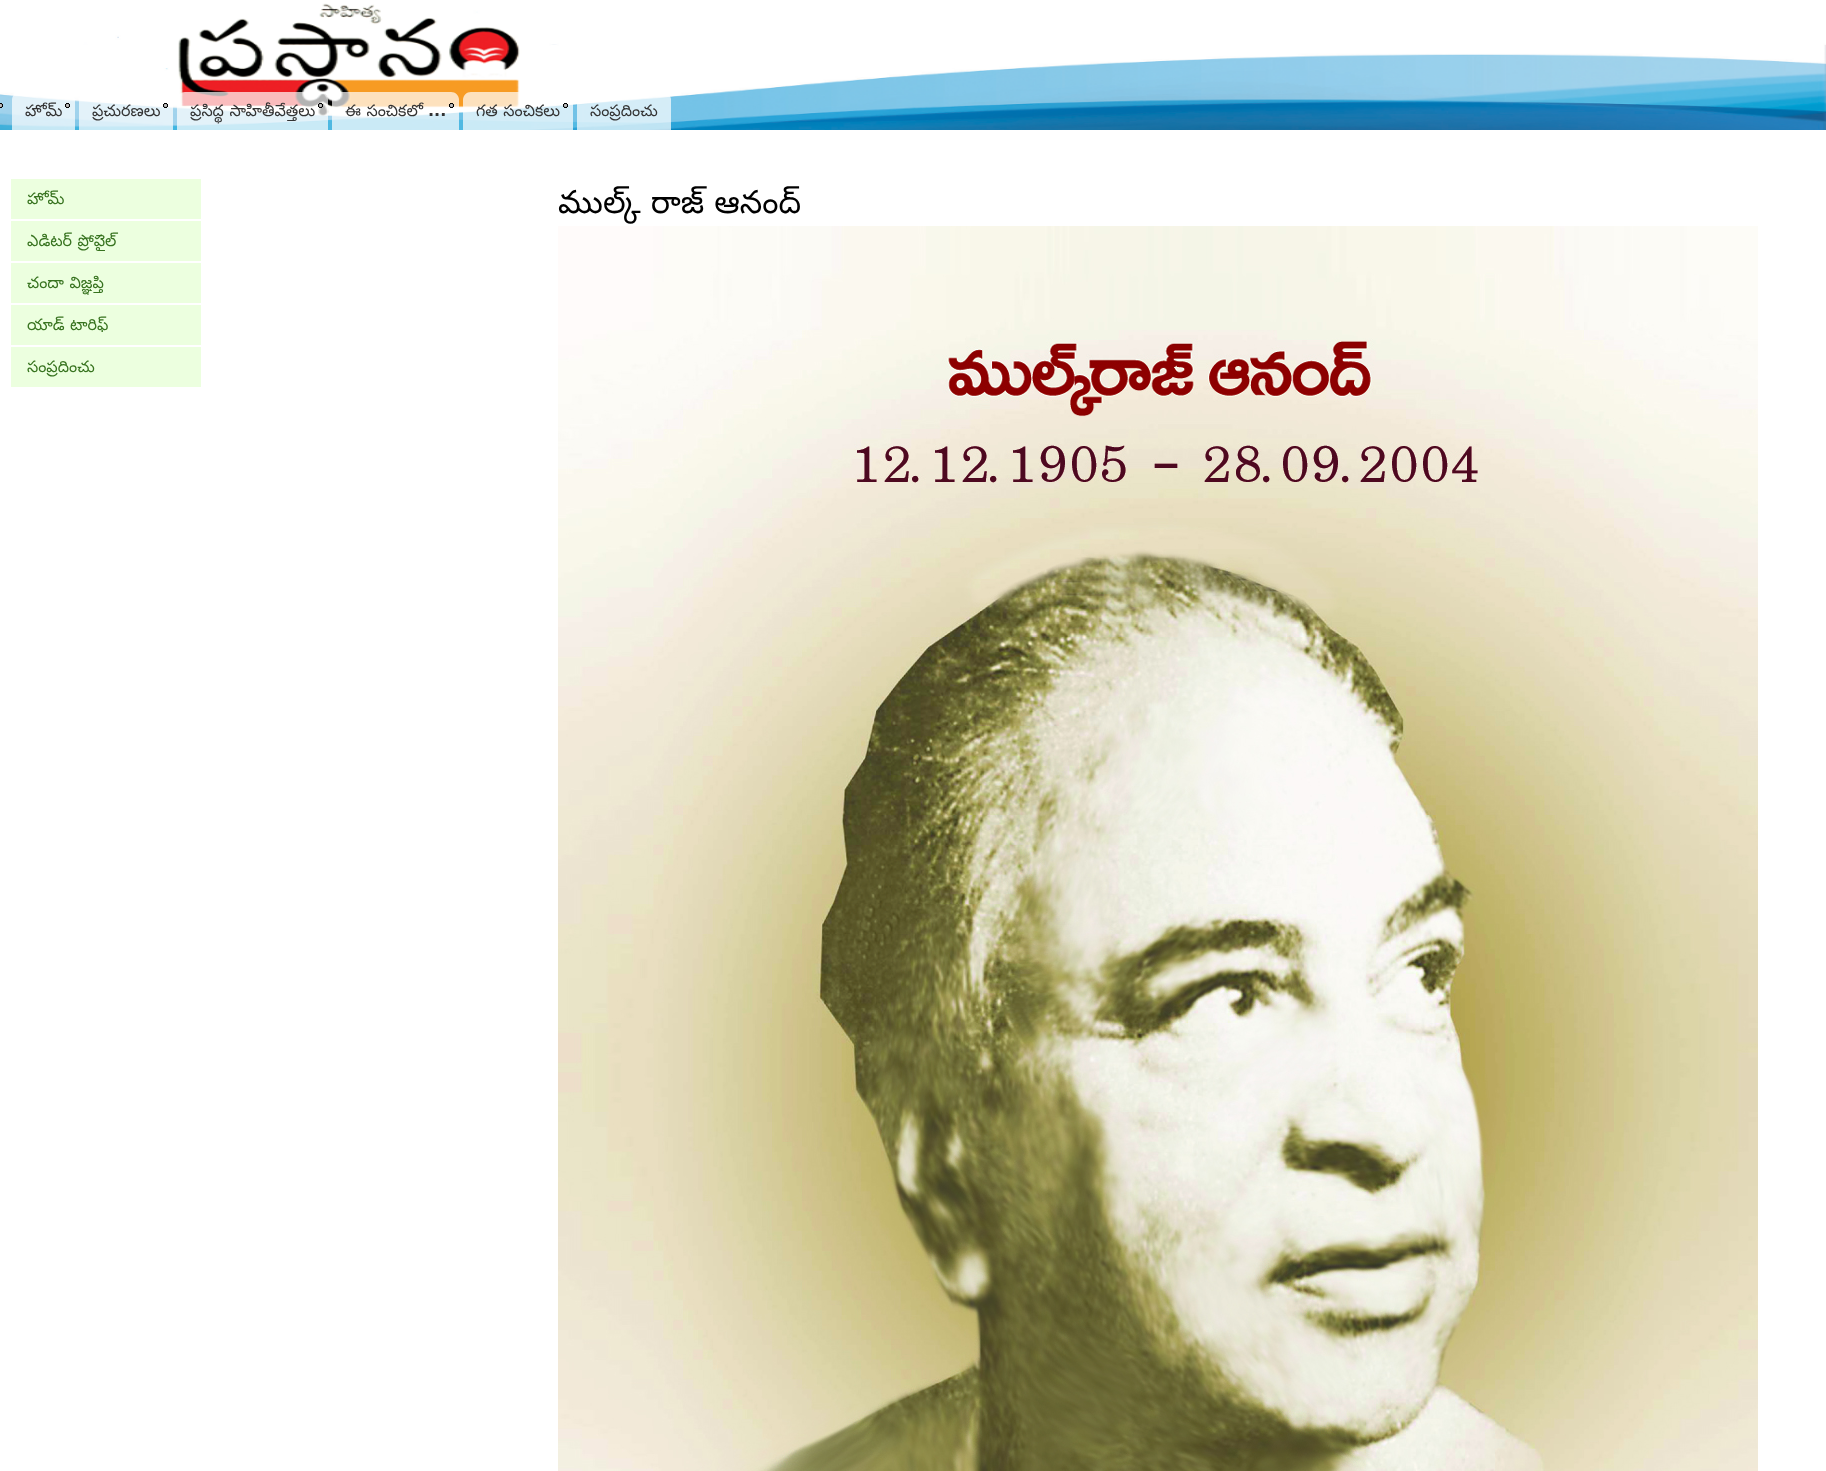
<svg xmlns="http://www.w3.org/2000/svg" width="1826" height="1471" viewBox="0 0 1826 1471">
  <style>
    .t1 { font: 16px Noto Sans Telugu; fill: #333; }
    .t2 { font: bold 16px DejaVu Sans; fill: #333; }
    .t3 { font: 16px Noto Sans Telugu; fill: #37731f; }
    .t4 { font: 32px Noto Sans Telugu; fill: #000; }
  </style>
  <rect width="100%" height="100%" fill="#fff"/>
  <image x="0" y="3" width="1826" height="127" href="images/1.png"/>
  <image x="0" y="103" width="3" height="5" href="images/2.png"/>
  <path d="M20 92H67C71.5 92 75 95.5 75 100V130H12V100C12 95.5 15.5 92 20 92Z" fill="#ffffffb3"/>
  <text x="25" y="116" class="t1">హోమ్</text>
  <image x="65" y="103" width="5" height="5" href="images/3.png"/>
  <path d="M87 92H165C169.5 92 173 95.5 173 100V130H79V100C79 95.5 82.5 92 87 92Z" fill="#ffffffb3"/>
  <text x="92" y="116" class="t1">ప్రచురణలు</text>
  <image x="163" y="103" width="5" height="5" href="images/4.png"/>
  <path d="M185 92H320C324.5 92 328 95.5 328 100V130H177V100C177 95.5 180.5 92 185 92Z" fill="#ffffffb3"/>
  <text x="190" y="116" word-spacing="1" class="t1">ప్రసిద్థ సాహితీవేత్తలు</text>
  <image x="318" y="103" width="5" height="5" href="images/5.png"/>
  <path d="M340 92H451C455.5 92 459 95.5 459 100V130H332V100C332 95.5 335.5 92 340 92Z" fill="#ffffffb3"/>
  <text x="345" y="116" word-spacing="1" class="t1">ఈ సంచికలో</text>
  <text x="428" y="116" class="t2">...</text>
  <image x="449" y="103" width="5" height="5" href="images/6.png"/>
  <path d="M471 92H565C569.5 92 573 95.5 573 100V130H463V100C463 95.5 466.5 92 471 92Z" fill="#ffffffb3"/>
  <text x="476" y="116" word-spacing="1" class="t1">గత సంచికలు</text>
  <image x="563" y="103" width="5" height="5" href="images/7.png"/>
  <path d="M585 92H663C667.5 92 671 95.5 671 100V130H577V100C577 95.5 580.5 92 585 92Z" fill="#ffffffb3"/>
  <text x="590" y="116" class="t1">సంప్రదించు</text>
  <rect x="11" y="179" width="190" height="40" fill="#ecffdf"/>
  <text x="27" y="204" class="t3">హోమ్</text>
  <rect x="11" y="221" width="190" height="40" fill="#ecffdf"/>
  <text x="27" y="246" word-spacing="1" class="t3">ఎడిటర్ ప్రోపైల్</text>
  <rect x="11" y="263" width="190" height="40" fill="#ecffdf"/>
  <text x="27" y="288" word-spacing="1" class="t3">చందా విజ్ఞప్తి</text>
  <rect x="11" y="305" width="190" height="40" fill="#ecffdf"/>
  <text x="27" y="330" word-spacing="1" class="t3">యాడ్ టారిఫ్</text>
  <rect x="11" y="347" width="190" height="40" fill="#ecffdf"/>
  <text x="27" y="372" class="t3">సంప్రదించు</text>
  <text x="558" y="213" word-spacing="1" class="t4">ముల్క్ రాజ్ ఆనంద్</text>
  <image x="558" y="226" width="1200" height="1245" href="images/8.png"/>
</svg>
